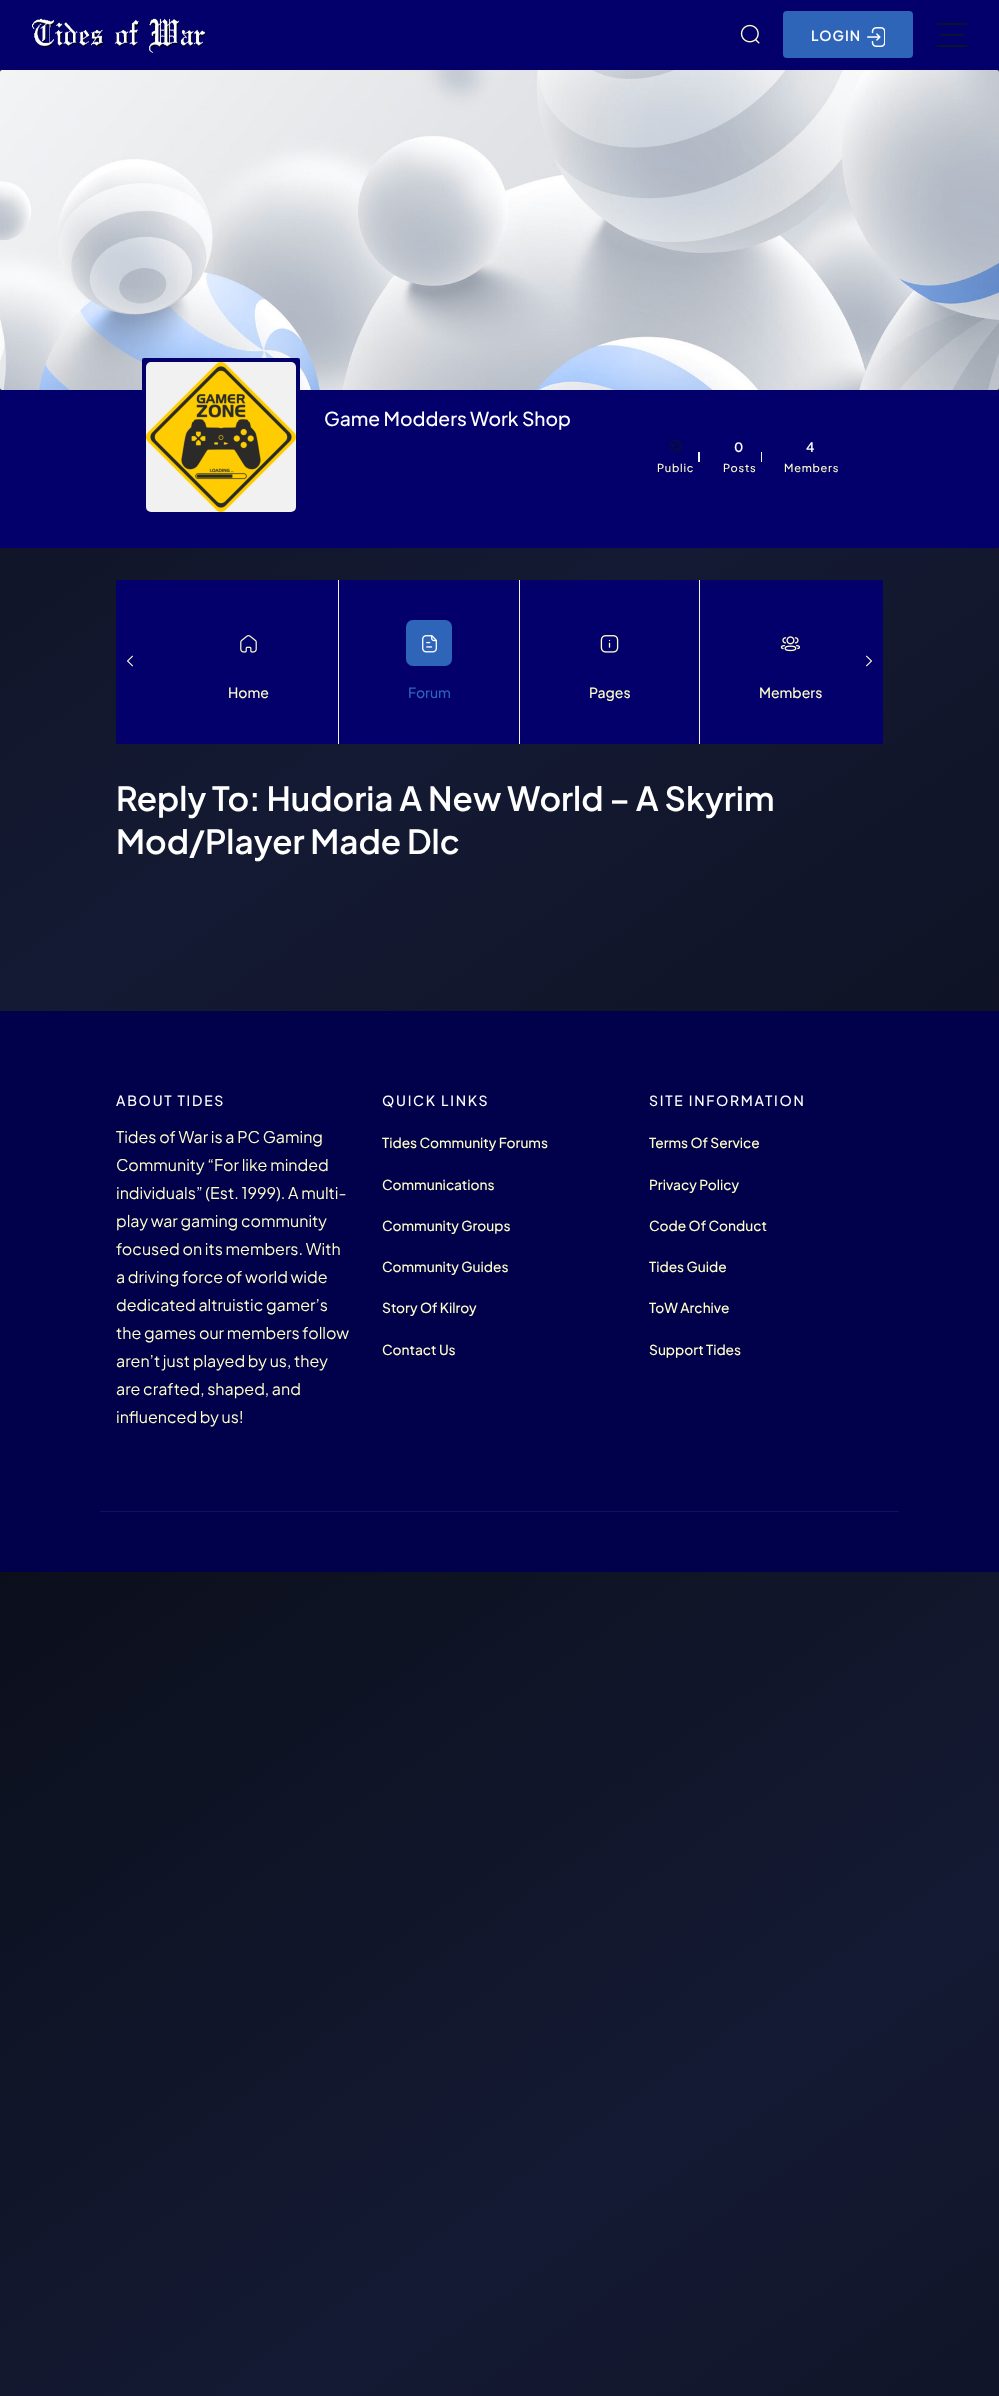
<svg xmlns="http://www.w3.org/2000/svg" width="999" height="2396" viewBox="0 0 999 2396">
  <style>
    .t1 { font: 600 14px Plus Jakarta Sans; letter-spacing: 1px; fill: #fff; }
    .t2 { font: 500 19.25px Plus Jakarta Sans; fill: #fff; }
    .t3 { font: 500 11px Plus Jakarta Sans; letter-spacing: 0.75px; fill: #ffc; }
    .t4 { font: 600 13px Plus Jakarta Sans; fill: #fff; }
    .t5 { font: 500 14px Plus Jakarta Sans; fill: #ffc; }
    .t6 { font: 500 14px Plus Jakarta Sans; fill: #2f65b9; }
    .t7 { font: 600 33.2px Plus Jakarta Sans; fill: #fff; }
    .t8 { font: 500 14px Plus Jakarta Sans; letter-spacing: 1.75px; fill: #fff; }
    .t9 { font: 16px Plus Jakarta Sans; fill: #ffc; }
    .t10 { font: 500 13.75px Plus Jakarta Sans; fill: #ffc; }
  </style>
  <defs>
    <linearGradient id="g1" gradientUnits="userSpaceOnUse" x1="-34" y1="24" x2="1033" y2="1548"><stop offset="0" stop-color="#0b0f1c"/><stop offset="0.45" stop-color="#141a33"/><stop offset="1" stop-color="#0a0d19"/></linearGradient>
    <linearGradient id="g2" gradientUnits="userSpaceOnUse" x1="-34" y1="1596" x2="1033" y2="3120"><stop offset="0" stop-color="#0b0f1c"/><stop offset="0.45" stop-color="#141a33"/><stop offset="1" stop-color="#0a0d19"/></linearGradient>
  </defs>
  <rect width="100%" height="100%" fill="#fff"/>
  <rect x="0" y="70" width="999" height="941" fill="url(#g1)"/>
  <rect x="0" y="1572" width="999" height="824" fill="url(#g2)"/>
  <rect x="0" y="0" width="999" height="70" fill="#03006b"/>
  <image x="32" y="18" width="174" height="35" href="images/1.png"/>
  <image x="740" y="24" width="20" height="20" href="images/2.png"/>
  <rect x="783" y="11" width="130" height="47" rx="4" fill="#2f65b9"/>
  <text x="811" y="41" class="t1">LOGIN</text>
  <image x="867" y="27" width="18" height="20" href="images/3.png"/>
  <rect x="937" y="23" width="30" height="2" fill="#07142e"/>
  <rect x="940" y="34" width="24" height="2" fill="#07142e"/>
  <rect x="937" y="45" width="30" height="2" fill="#07142e"/>
  <image x="0" y="70" width="999" height="320" href="images/4.png"/>
  <rect x="0" y="390" width="999" height="158" rx="2" fill="#03006b"/>
  <rect x="142" y="358" width="158" height="158" rx="2" fill="#03006b"/>
  <rect x="146" y="362" width="150" height="150" rx="5" fill="#f1f1f1"/>
  <image x="146" y="362" width="150" height="150" href="images/5.png"/>
  <text x="324" y="426" class="t2">Game Modders Work Shop</text>
  <image x="669" y="439" width="13" height="14" href="images/6.png"/>
  <rect x="698" y="452" width="2" height="10" fill="#f1f1f1"/>
  <text x="657" y="472" class="t3">Public</text>
  <text x="734" y="452" class="t4">0</text>
  <rect x="761" y="452" width="1" height="10" fill="#f1f1f1"/>
  <text x="723" y="472" class="t3">Posts</text>
  <text x="806" y="452" class="t4">4</text>
  <text x="784" y="472" class="t3">Members</text>
  <rect x="116" y="580" width="767" height="164" rx="2" fill="#03006b"/>
  <image x="127" y="655" width="6" height="12" href="images/7.png"/>
  <image x="866" y="655" width="6" height="12" href="images/8.png"/>
  <image x="240" y="635" width="17" height="18" href="images/9.png"/>
  <text x="228" y="698" class="t5">Home</text>
  <rect x="338" y="580" width="1" height="164" fill="#f1f1f1"/>
  <rect x="406" y="620" width="46" height="46" rx="7" fill="#2f65b9"/>
  <image x="422" y="635" width="15" height="18" href="images/10.png"/>
  <text x="408" y="698" class="t6">Forum</text>
  <rect x="519" y="580" width="1" height="164" fill="#f1f1f1"/>
  <image x="600" y="635" width="19" height="18" href="images/11.png"/>
  <text x="589" y="698" class="t5">Pages</text>
  <rect x="699" y="580" width="1" height="164" fill="#f1f1f1"/>
  <image x="780" y="636" width="21" height="16" href="images/12.png"/>
  <text x="759" y="698" class="t5">Members</text>
  <text x="116" y="811" class="t7">Reply To: Hudoria A New World – A Skyrim</text>
  <text x="116" y="854" class="t7">Mod/Player Made Dlc</text>
  <rect x="0" y="1011" width="999" height="561" fill="#00004b"/>
  <rect x="100" y="1511" width="799" height="1" fill="#091360"/>
  <text x="116" y="1106" class="t8">ABOUT TIDES</text>
  <text x="116" y="1143" class="t9">Tides of War is a PC Gaming</text>
  <text x="116" y="1171" class="t9">Community “For like minded</text>
  <text x="116" y="1199" class="t9">individuals” (Est. 1999). A multi-</text>
  <text x="116" y="1227" class="t9">play war gaming community</text>
  <text x="116" y="1255" class="t9">focused on its members. With</text>
  <text x="116" y="1283" class="t9">a driving force of world wide</text>
  <text x="116" y="1311" class="t9">dedicated altruistic gamer’s</text>
  <text x="116" y="1339" class="t9">the games our members follow</text>
  <text x="116" y="1367" class="t9">aren’t just played by us, they</text>
  <text x="116" y="1395" class="t9">are crafted, shaped, and</text>
  <text x="116" y="1423" class="t9">influenced by us!</text>
  <text x="382" y="1106" class="t8">QUICK LINKS</text>
  <text x="382" y="1148" class="t10">Tides Community Forums</text>
  <text x="382" y="1190" class="t10">Communications</text>
  <text x="382" y="1231" class="t10">Community Groups</text>
  <text x="382" y="1272" class="t10">Community Guides</text>
  <text x="382" y="1313" class="t10">Story Of Kilroy</text>
  <text x="382" y="1355" class="t10">Contact Us</text>
  <text x="649" y="1106" class="t8">SITE INFORMATION</text>
  <text x="649" y="1148" class="t10">Terms Of Service</text>
  <text x="649" y="1190" class="t10">Privacy Policy</text>
  <text x="649" y="1231" class="t10">Code Of Conduct</text>
  <text x="649" y="1272" class="t10">Tides Guide</text>
  <text x="649" y="1313" class="t10">ToW Archive</text>
  <text x="649" y="1355" class="t10">Support Tides</text>
</svg>
